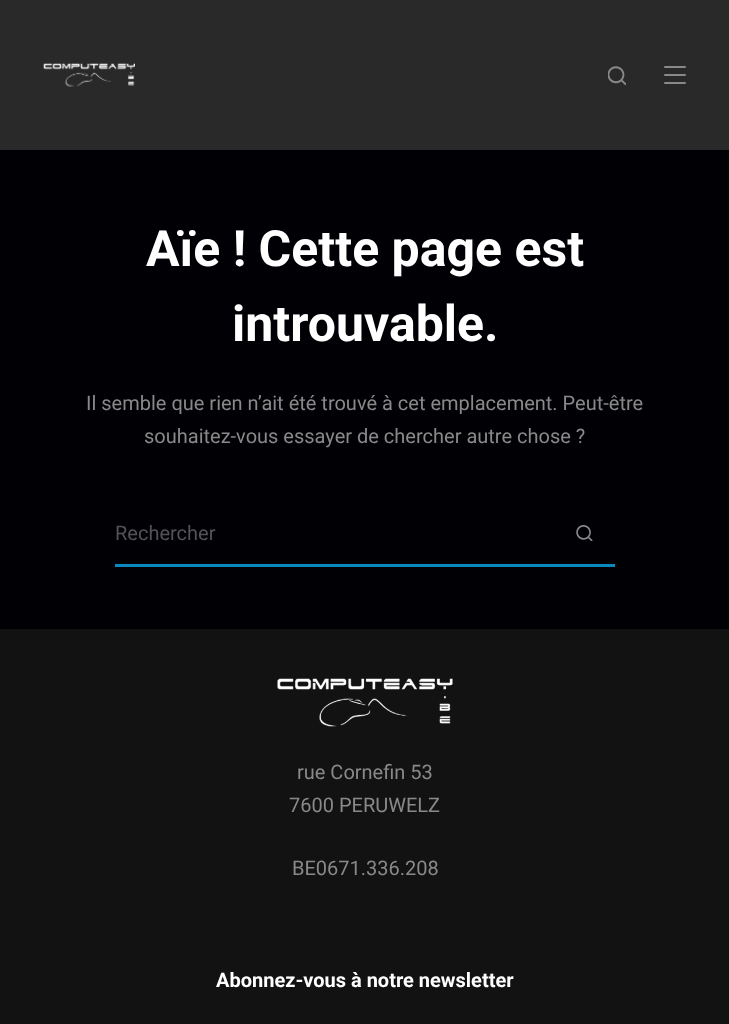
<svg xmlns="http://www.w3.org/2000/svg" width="729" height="1024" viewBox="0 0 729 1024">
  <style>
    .t1 { font: bold 50px Roboto; fill: #fff; }
    .t2 { font: 20px Roboto; fill: #898989; }
    .t3 { font: 20px Roboto; fill: #535254; }
    .t4 { font: bold 20px Roboto; fill: #fff; }
  </style>
  <rect width="100%" height="100%" fill="#010005"/>
  <rect x="0" y="0" width="729" height="150" fill="#292929"/>
  <image x="43" y="63" width="92" height="24" href="images/1.png"/>
  <image x="608" y="66" width="18" height="19" href="images/2.png"/>
  <rect x="664" y="66" width="22" height="2" rx="1" fill="#898989"/>
  <rect x="664" y="74" width="22" height="2" rx="1" fill="#898989"/>
  <rect x="664" y="82" width="22" height="2" rx="1" fill="#898989"/>
  <text x="146" y="266" class="t1">Aïe ! Cette page est</text>
  <text x="232" y="341" class="t1">introuvable.</text>
  <text x="86" y="410" class="t2">Il semble que rien n’ait été trouvé à cet emplacement. Peut-être</text>
  <text x="144" y="443" class="t2">souhaitez-vous essayer de chercher autre chose ?</text>
  <rect x="115" y="564" width="500" height="3" fill="#0989c0"/>
  <text x="115" y="540" class="t3">Rechercher</text>
  <image x="576" y="525" width="17" height="16" href="images/3.png"/>
  <rect x="0" y="629" width="729" height="395" fill="#121212"/>
  <image x="277" y="678" width="176" height="49" href="images/4.png"/>
  <text x="297" y="779" class="t2">rue Cornefin 53</text>
  <text x="289" y="812" class="t2">7600 PERUWELZ</text>
  <text x="292" y="875" class="t2">BE0671.336.208</text>
  <text x="216" y="987" class="t4">Abonnez-vous à notre newsletter</text>
</svg>
